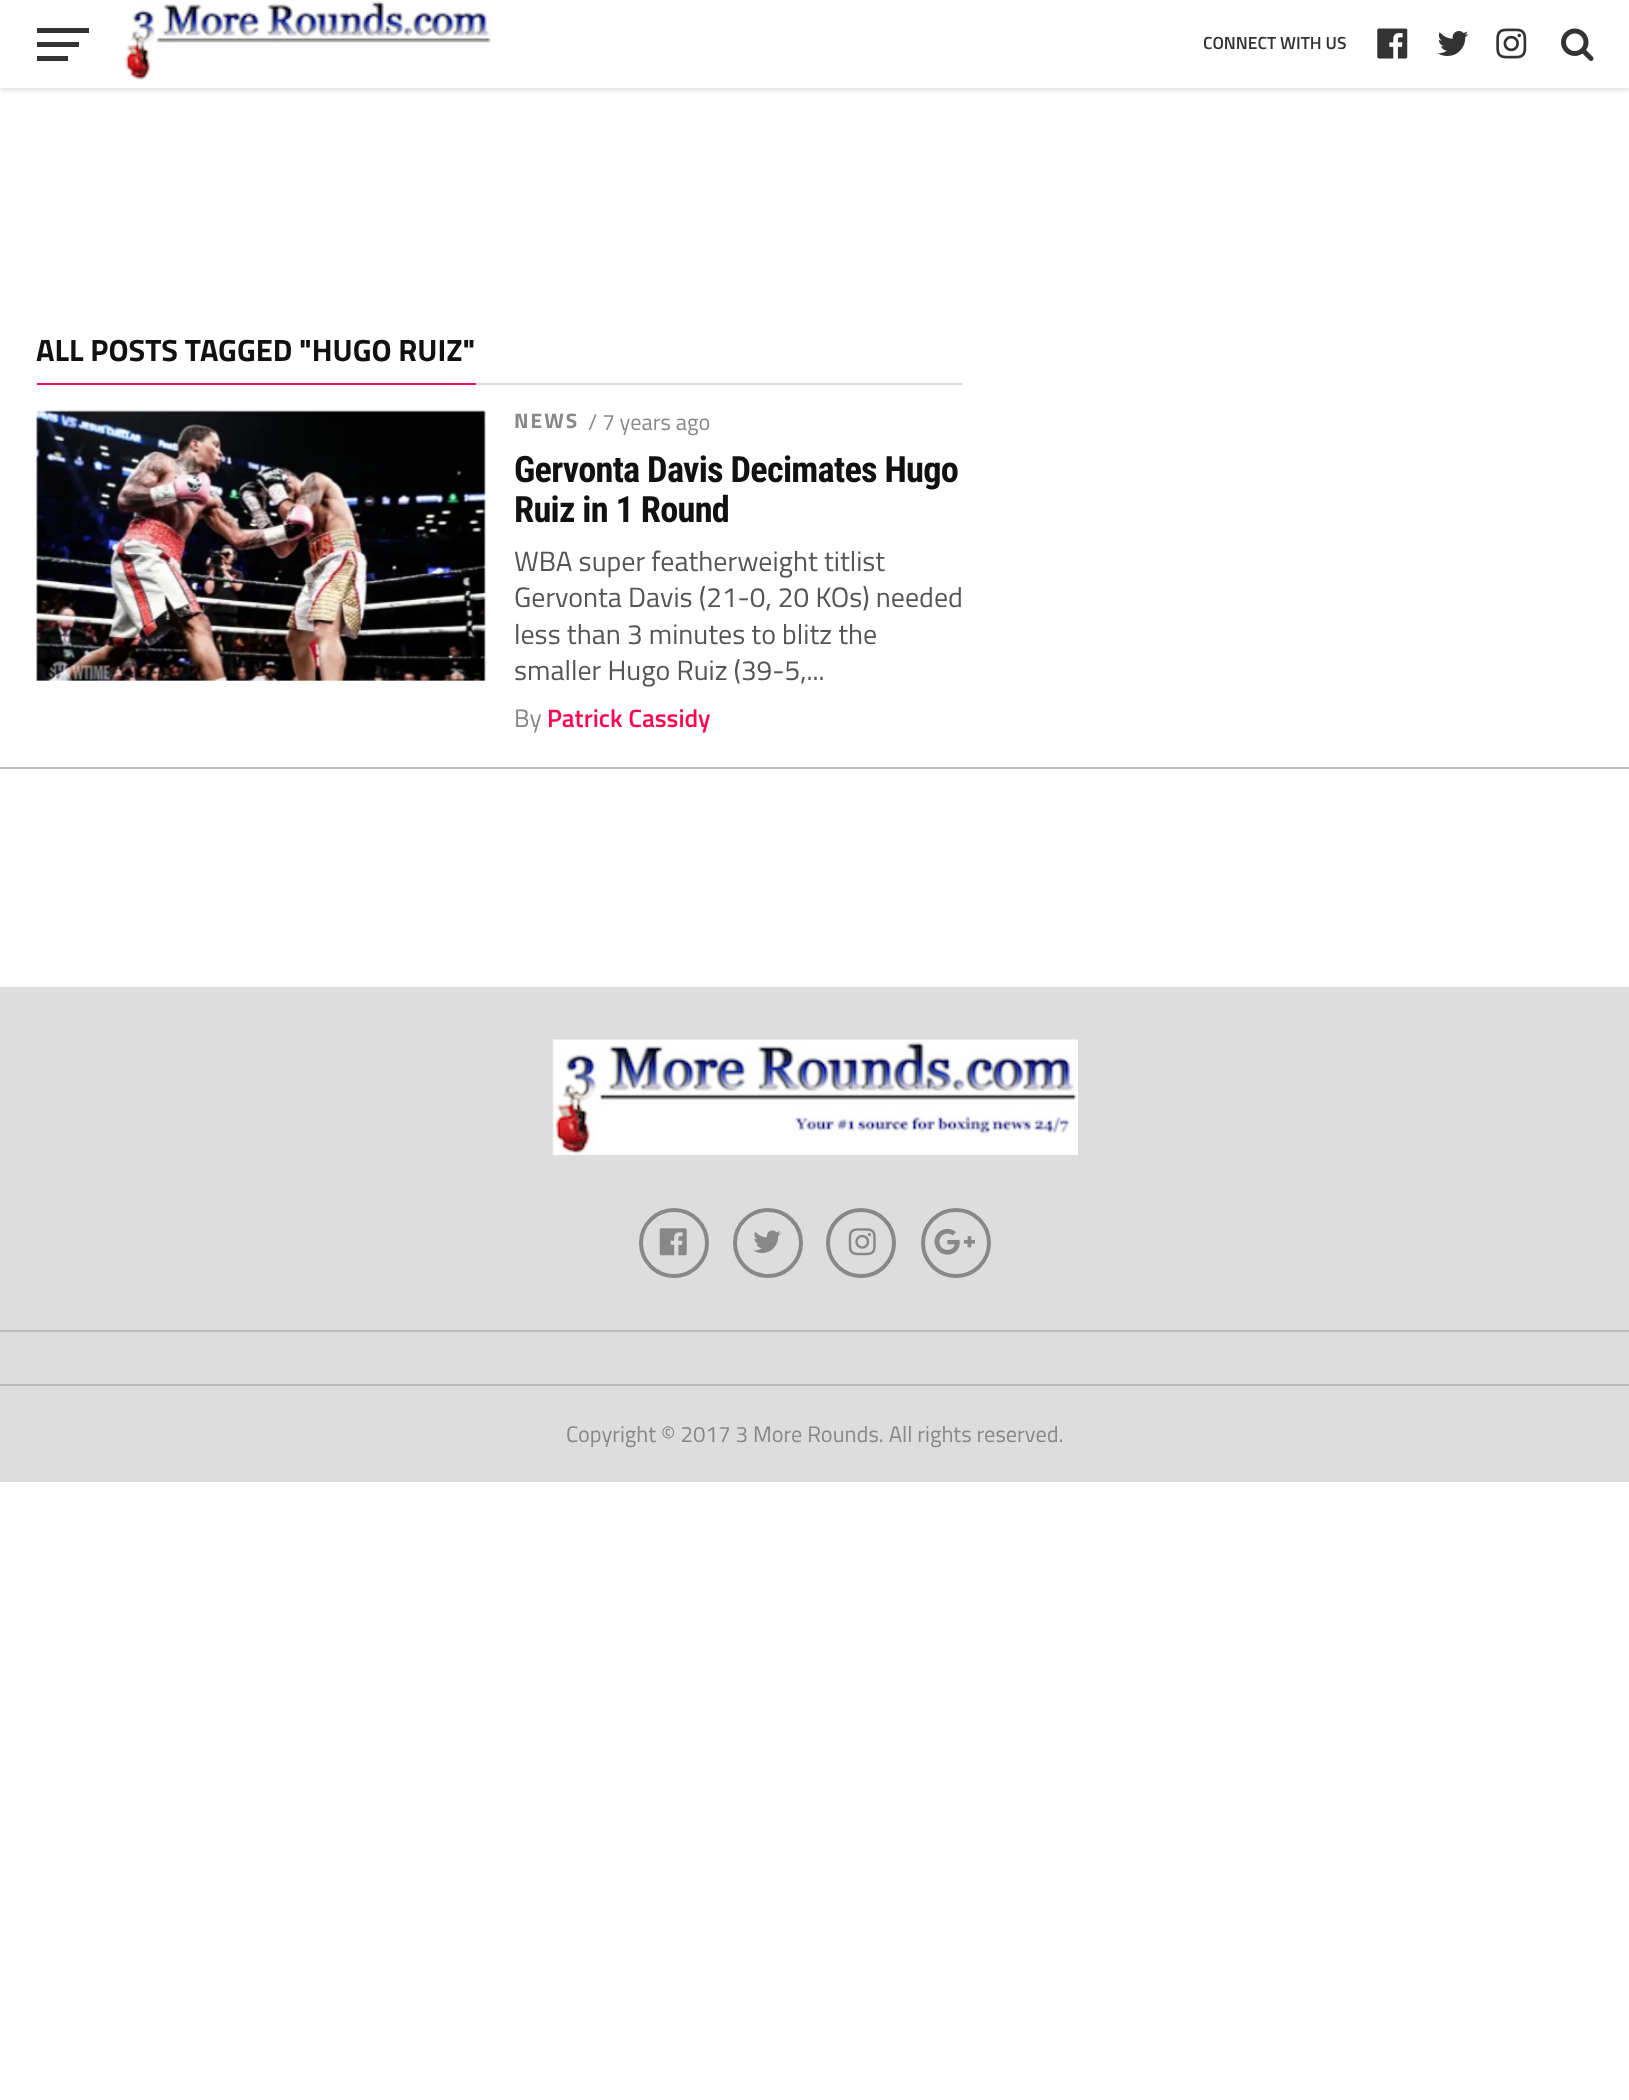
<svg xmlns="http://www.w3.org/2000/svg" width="1629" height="2100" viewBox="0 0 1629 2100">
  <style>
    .t1 { font: 600 17.5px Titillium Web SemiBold; fill: #333; }
    .t2 { font: bold 30.75px Titillium Web; fill: #111; }
    .t3 { font: bold 21px Titillium Web; letter-spacing: 2px; fill: #888; }
    .t4 { font: 22.4px Titillium Web; fill: #888; }
    .t5 { font: bold 36.4px Roboto Condensed; letter-spacing: -0.75px; fill: #111; }
    .t6 { font: 28px Titillium Web; fill: #555; }
    .t7 { font: 25.25px Titillium Web; fill: #888; }
    .t8 { font: 600 25.25px Titillium Web SemiBold; fill: #fe074e; }
  </style>
  <rect width="100%" height="100%" fill="#fff"/>
  <rect x="0" y="4" width="1629" height="87" fill="#0000001a" filter="blur(2px)"/>
  <rect x="0" y="1" width="1629" height="87" fill="#fff"/>
  <rect x="37" y="28" width="52" height="5" fill="#333"/>
  <rect x="37" y="42" width="42" height="5" fill="#333"/>
  <rect x="37" y="56" width="31" height="5" fill="#333"/>
  <image x="125" y="1" width="367" height="80" href="images/1.png"/>
  <text x="1203" y="49" class="t1">CONNECT WITH US</text>
  <image x="1377" y="28" width="31" height="31" href="images/2.png"/>
  <image x="1437" y="31" width="32" height="25" href="images/3.png"/>
  <image x="1496" y="28" width="31" height="31" href="images/4.png"/>
  <image x="1561" y="28" width="33" height="33" href="images/5.png"/>
  <rect x="0" y="767" width="1629" height="2" fill="#bbb"/>
  <rect x="476" y="383" width="487" height="2" fill="#ddd"/>
  <rect x="37" y="383" width="439" height="2" fill="#fe074e"/>
  <text x="36" y="361" class="t2">ALL POSTS TAGGED "HUGO RUIZ"</text>
  <image x="36" y="410" width="450" height="271" href="images/6.png"/>
  <text x="514" y="428" class="t3">NEWS</text>
  <text x="588" y="430" class="t4">/ 7 years ago</text>
  <text x="514" y="482" class="t5">Gervonta Davis Decimates Hugo</text>
  <text x="514" y="522" class="t5">Ruiz in 1 Round</text>
  <text x="514" y="571" class="t6">WBA super featherweight titlist</text>
  <text x="514" y="607" class="t6">Gervonta Davis (21-0, 20 KOs) needed</text>
  <text x="514" y="644" class="t6">less than 3 minutes to blitz the</text>
  <text x="514" y="680" class="t6">smaller Hugo Ruiz (39-5,...</text>
  <text x="514" y="727" class="t7">By</text>
  <text x="547" y="727" class="t8">Patrick Cassidy</text>
  <rect x="0" y="987" width="1629" height="495" fill="#ddd"/>
  <image x="552" y="1039" width="526" height="116" href="images/7.png"/>
  <circle cx="674" cy="1243" r="33" fill="none" stroke="#888" stroke-width="4"/>
  <image x="659" y="1228" width="28" height="28" href="images/8.png"/>
  <circle cx="768" cy="1243" r="33" fill="none" stroke="#888" stroke-width="4"/>
  <image x="753" y="1230" width="28" height="23" href="images/9.png"/>
  <circle cx="861" cy="1243" r="33" fill="none" stroke="#888" stroke-width="4"/>
  <image x="848" y="1228" width="28" height="28" href="images/10.png"/>
  <circle cx="956" cy="1243" r="33" fill="none" stroke="#888" stroke-width="4"/>
  <image x="934" y="1228" width="41" height="27" href="images/11.png"/>
  <rect x="0" y="1330" width="1629" height="2" fill="#bbb"/>
  <rect x="0" y="1384" width="1629" height="2" fill="#bbb"/>
  <text x="566" y="1442" class="t4">Copyright © 2017 3 More Rounds. All rights reserved.</text>
</svg>
